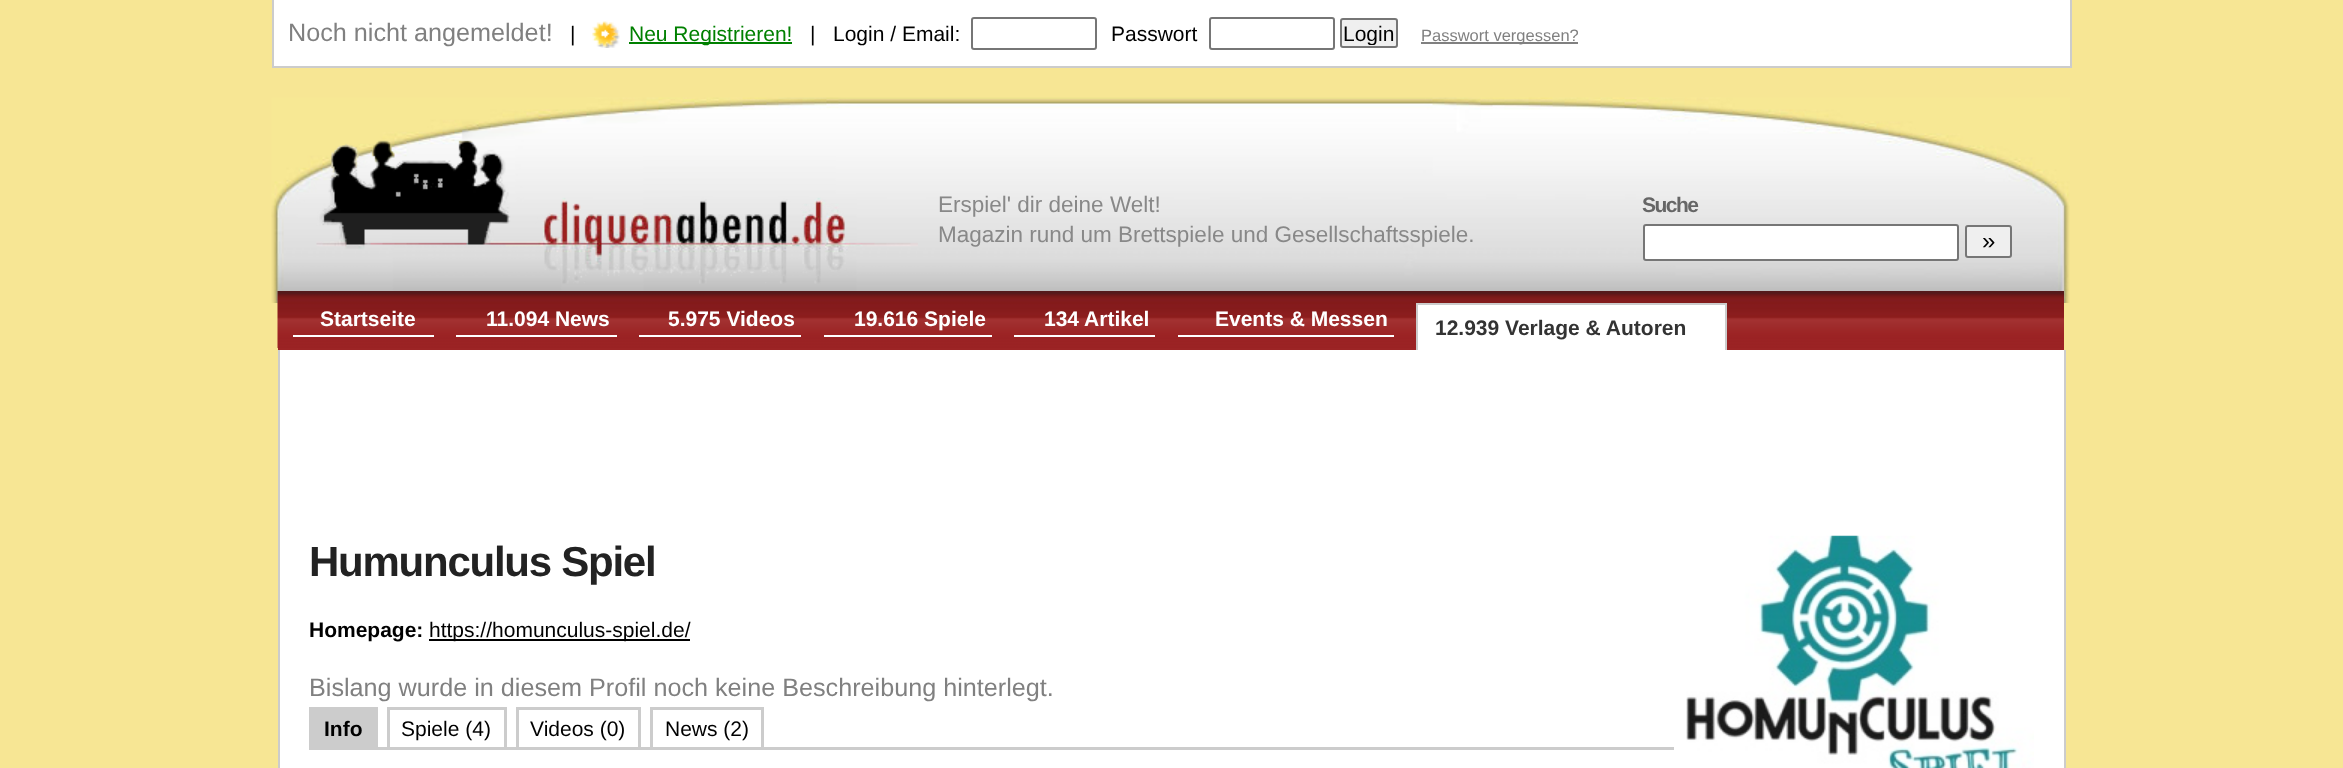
<svg xmlns="http://www.w3.org/2000/svg" width="2343" height="768" viewBox="0 0 2343 768">
  <style>
    .t1 { font: 25.2px Liberation Sans; fill: #808080; }
    .t2 { font: 21px Liberation Sans; fill: #000; }
    .t3 { font: 21px Liberation Sans; fill: #008000; }
    .t4 { font: 16.5px Liberation Sans; fill: #808080; }
    .t5 { font: 22.5px Liberation Sans; fill: #888; }
    .t6 { font: bold 21px Liberation Sans; letter-spacing: -1.5px; fill: #666; }
    .t7 { font: 24px Liberation Sans; fill: #000; }
    .t8 { font: bold 21px Liberation Sans; fill: #fff; }
    .t9 { font: bold 21px Liberation Sans; fill: #333; }
    .t10 { font: bold 42px Liberation Sans; letter-spacing: -1.25px; fill: #222; }
    .t11 { font: bold 21px Liberation Sans; fill: #000; }
  </style>
  <defs>
    <clipPath id="clip1"><rect x="1343" y="21" width="52" height="24"/></clipPath>
  </defs>
  <rect width="100%" height="100%" fill="#f7e694"/>
  <rect x="274" y="0" width="1796" height="66" fill="#fff"/>
  <rect x="2070" y="0" width="2" height="68" fill="#ccc"/>
  <rect x="272" y="66" width="1800" height="2" fill="#ccc"/>
  <rect x="272" y="0" width="2" height="68" fill="#ccc"/>
  <text x="288" y="41" class="t1">Noch nicht angemeldet!</text>
  <text x="570" y="41" class="t2">|</text>
  <image x="592" y="21" width="28" height="27" href="images/1.png"/>
  <rect x="629" y="42" width="163" height="2" fill="#008000"/>
  <text x="629" y="41" class="t3">Neu Registrieren!</text>
  <text x="810" y="41" class="t2">|</text>
  <text x="833" y="41" class="t2">Login / Email:</text>
  <rect x="972" y="18" width="124" height="31" rx="2" fill="none" stroke="#767676" stroke-width="2"/>
  <text x="1111" y="41" class="t2">Passwort</text>
  <rect x="1210" y="18" width="124" height="31" rx="2" fill="none" stroke="#767676" stroke-width="2"/>
  <rect x="1341" y="19" width="56" height="28" rx="2" fill="#efefef" stroke="#767676" stroke-width="2"/>
  <g clip-path="url(#clip1)">
    <text x="1343" y="41" class="t2">Login</text>
  </g>
  <rect x="1421" y="42" width="157" height="2" fill="#808080"/>
  <text x="1421" y="41" class="t4">Passwort vergessen?</text>
  <image x="271" y="97" width="1799" height="206" href="images/2.png"/>
  <image x="316" y="140" width="602" height="144" href="images/3.png"/>
  <text x="938" y="212" class="t5">Erspiel' dir deine Welt!</text>
  <text x="938" y="242" class="t5">Magazin rund um Brettspiele und Gesellschaftsspiele.</text>
  <text x="1642" y="212" class="t6">Suche</text>
  <rect x="1644" y="225" width="314" height="35" rx="2" fill="#fff" stroke="#767676" stroke-width="2"/>
  <rect x="1966" y="226" width="45" height="31" rx="2" fill="#efefef" stroke="#767676" stroke-width="2"/>
  <text x="1982" y="249" class="t7">»</text>
  <rect x="278" y="348" width="1786" height="2" fill="#9c2425"/>
  <image x="277" y="291" width="1787" height="57" href="images/4.png"/>
  <rect x="293" y="335" width="141" height="2" fill="#fff"/>
  <text x="320" y="326" class="t8">Startseite</text>
  <rect x="456" y="335" width="161" height="2" fill="#fff"/>
  <text x="486" y="326" class="t8">11.094 News</text>
  <rect x="639" y="335" width="162" height="2" fill="#fff"/>
  <text x="668" y="326" class="t8">5.975 Videos</text>
  <rect x="824" y="335" width="168" height="2" fill="#fff"/>
  <text x="854" y="326" class="t8">19.616 Spiele</text>
  <rect x="1014" y="335" width="141" height="2" fill="#fff"/>
  <text x="1044" y="326" class="t8">134 Artikel</text>
  <rect x="1178" y="335" width="216" height="2" fill="#fff"/>
  <text x="1215" y="326" class="t8">Events &amp; Messen</text>
  <rect x="1418" y="305" width="307" height="45" fill="#fff"/>
  <rect x="1416" y="303" width="311" height="2" fill="#ccc"/>
  <rect x="1725" y="303" width="2" height="47" fill="#ccc"/>
  <rect x="1416" y="303" width="2" height="47" fill="#ccc"/>
  <text x="1435" y="335" class="t9">12.939 Verlage &amp; Autoren</text>
  <rect x="280" y="350" width="1784" height="418" fill="#fff"/>
  <rect x="2064" y="350" width="2" height="418" fill="#ccc"/>
  <rect x="278" y="350" width="2" height="418" fill="#ccc"/>
  <text x="309" y="576" class="t10">Humunculus Spiel</text>
  <image x="1686" y="535" width="348" height="233" href="images/5.png"/>
  <text x="309" y="637" class="t11">Homepage:</text>
  <rect x="429" y="639" width="261" height="2" fill="#000"/>
  <text x="429" y="637" class="t2">https://homunculus-spiel.de/</text>
  <text x="309" y="696" class="t1">Bislang wurde in diesem Profil noch keine Beschreibung hinterlegt.</text>
  <rect x="309" y="747" width="1365" height="3" fill="#ccc"/>
  <rect x="309" y="707" width="69" height="40" fill="#ccc"/>
  <text x="324" y="736" class="t11">Info</text>
  <rect x="387" y="707" width="120" height="3" fill="#ccc"/>
  <rect x="504" y="707" width="3" height="40" fill="#ccc"/>
  <rect x="387" y="707" width="3" height="40" fill="#ccc"/>
  <text x="401" y="736" class="t2">Spiele (4)</text>
  <rect x="516" y="707" width="125" height="3" fill="#ccc"/>
  <rect x="638" y="707" width="3" height="40" fill="#ccc"/>
  <rect x="516" y="707" width="3" height="40" fill="#ccc"/>
  <text x="530" y="736" class="t2">Videos (0)</text>
  <rect x="650" y="707" width="114" height="3" fill="#ccc"/>
  <rect x="761" y="707" width="3" height="40" fill="#ccc"/>
  <rect x="650" y="707" width="3" height="40" fill="#ccc"/>
  <text x="665" y="736" class="t2">News (2)</text>
</svg>
